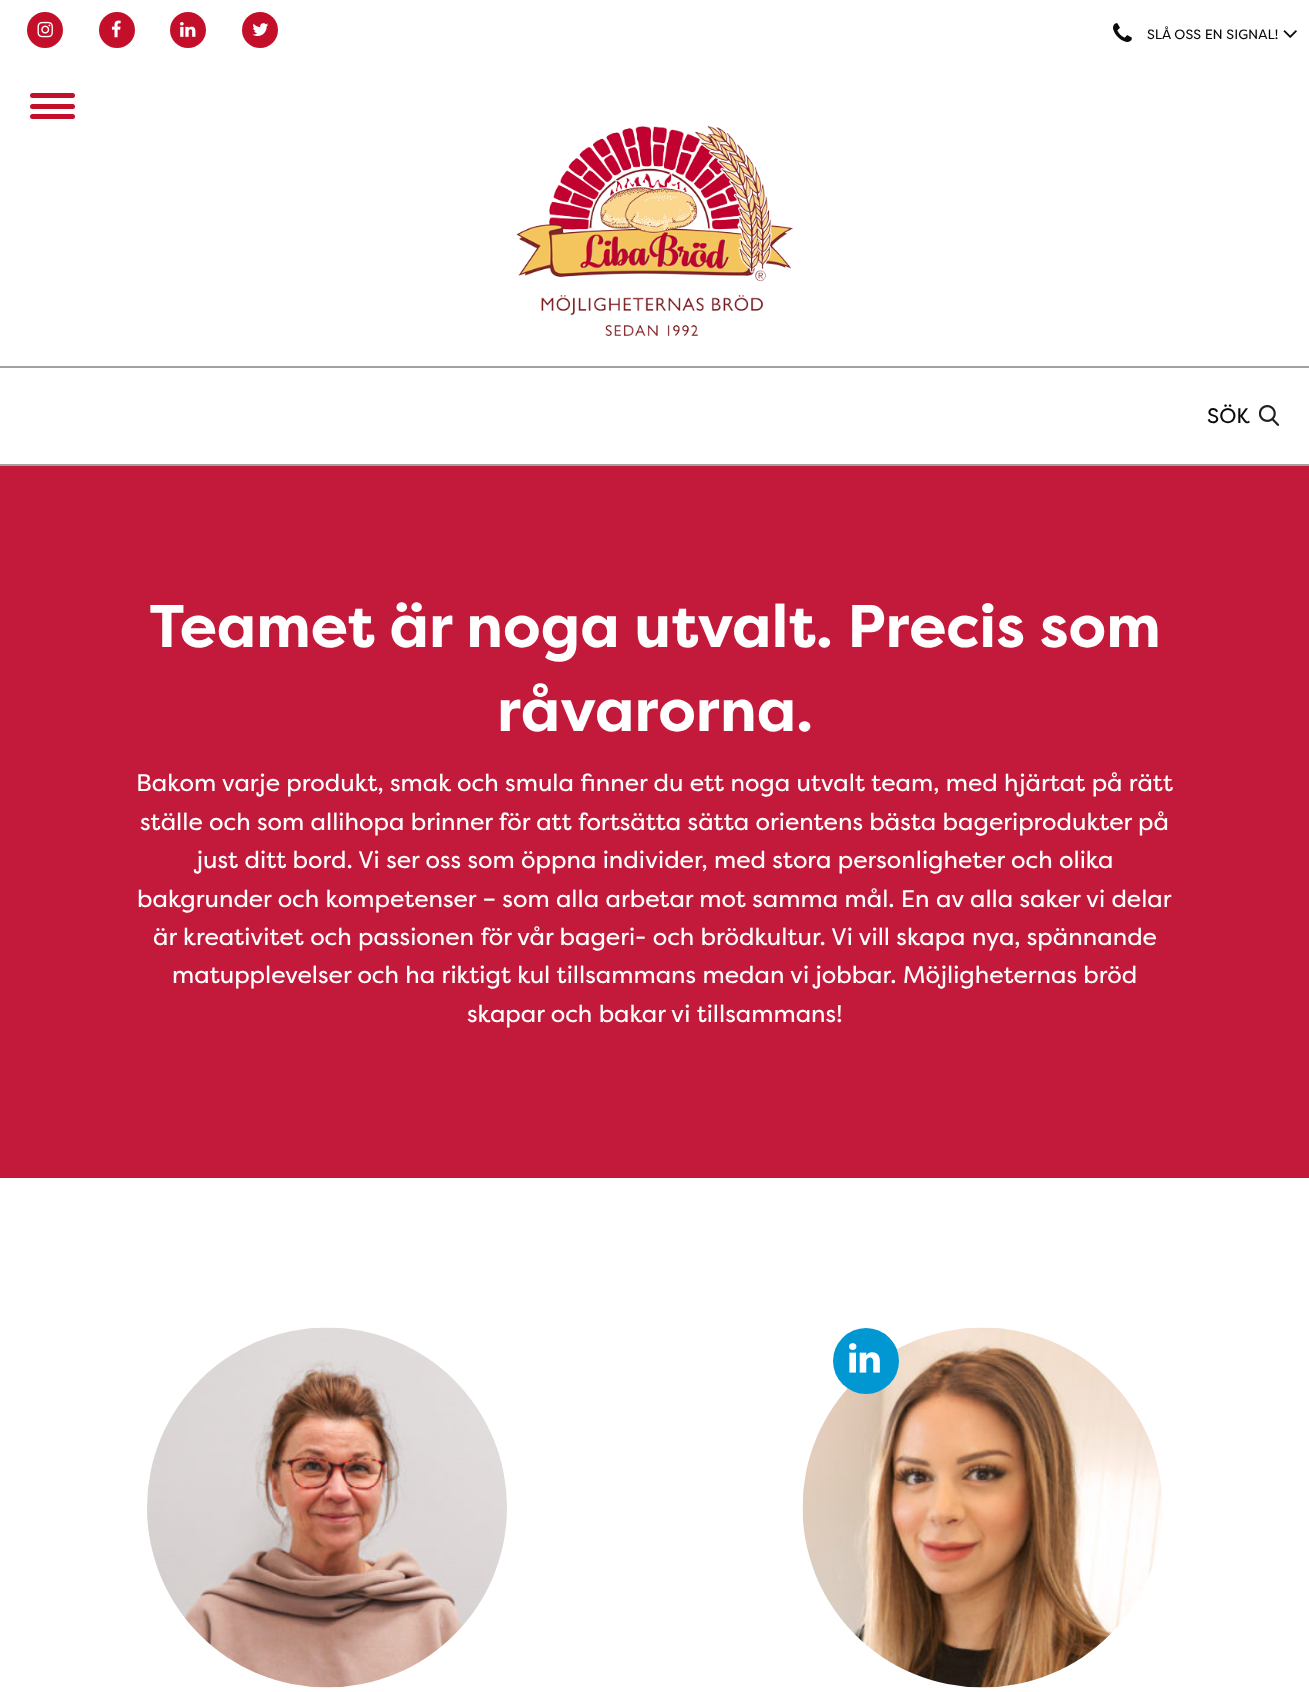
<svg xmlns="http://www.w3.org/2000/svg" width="1309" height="1692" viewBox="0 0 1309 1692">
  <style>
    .t1 { font: 13.5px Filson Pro; fill: #0a0a0a; }
    .t2 { font: 21px Filson Pro; fill: #0a0a0a; }
    .t3 { font: bold 60px Filson Pro; fill: #fff; }
    .t4 { font: 24px Filson Pro; fill: #fff; }
  </style>
  <rect width="100%" height="100%" fill="#fff"/>
  <rect x="0" y="366" width="1309" height="2" fill="#a1a1a1"/>
  <circle cx="45" cy="30" r="18" fill="#c30f2a"/>
  <image x="37" y="21" width="16" height="17" href="images/1.png"/>
  <circle cx="117" cy="30" r="18" fill="#c30f2a"/>
  <image x="111" y="20" width="10" height="18" href="images/2.png"/>
  <circle cx="188" cy="30" r="18" fill="#c30f2a"/>
  <image x="180" y="22" width="16" height="15" href="images/3.png"/>
  <circle cx="260" cy="30" r="18" fill="#c30f2a"/>
  <image x="252" y="23" width="17" height="13" href="images/4.png"/>
  <rect x="30" y="93" width="45" height="5" rx="2.5" fill="#c30f2a"/>
  <rect x="30" y="104" width="45" height="5" rx="2.5" fill="#c30f2a"/>
  <rect x="30" y="114" width="45" height="5" rx="2.5" fill="#c30f2a"/>
  <image x="1113" y="23" width="19" height="19" href="images/5.png"/>
  <text x="1147" y="39" class="t1">SLÅ OSS EN SIGNAL!</text>
  <image x="1283" y="30" width="14" height="8" href="images/6.png"/>
  <image x="516" y="126" width="278" height="210" href="images/7.png"/>
  <rect x="0" y="464" width="1309" height="2" fill="#a1a1a1"/>
  <text x="1207" y="423" class="t2">SÖK</text>
  <image x="1259" y="405" width="21" height="21" href="images/8.png"/>
  <rect x="0" y="466" width="1309" height="712" fill="#c3193a"/>
  <text x="149" y="647" class="t3">Teamet är noga utvalt. Precis som</text>
  <text x="497" y="731" class="t3">råvarorna.</text>
  <text x="136" y="791" class="t4">Bakom varje produkt, smak och smula finner du ett noga utvalt team, med hjärtat på rätt</text>
  <text x="140" y="830" class="t4">ställe och som allihopa brinner för att fortsätta sätta orientens bästa bageriprodukter på</text>
  <text x="196" y="868" class="t4">just ditt bord. Vi ser oss som öppna individer, med stora personligheter och olika</text>
  <text x="137" y="907" class="t4">bakgrunder och kompetenser – som alla arbetar mot samma mål. En av alla saker vi delar</text>
  <text x="153" y="945" class="t4">är kreativitet och passionen för vår bageri- och brödkultur. Vi vill skapa nya, spännande</text>
  <text x="172" y="983" class="t4">matupplevelser och ha riktigt kul tillsammans medan vi jobbar. Möjligheternas bröd</text>
  <text x="467" y="1022" class="t4">skapar och bakar vi tillsammans!</text>
  <image x="147" y="1327" width="360" height="361" href="images/9.png"/>
  <image x="802" y="1327" width="360" height="361" href="images/10.png"/>
  <circle cx="866" cy="1361" r="33" fill="#0097d3"/>
  <image x="849" y="1343" width="31" height="30" href="images/11.png"/>
</svg>
